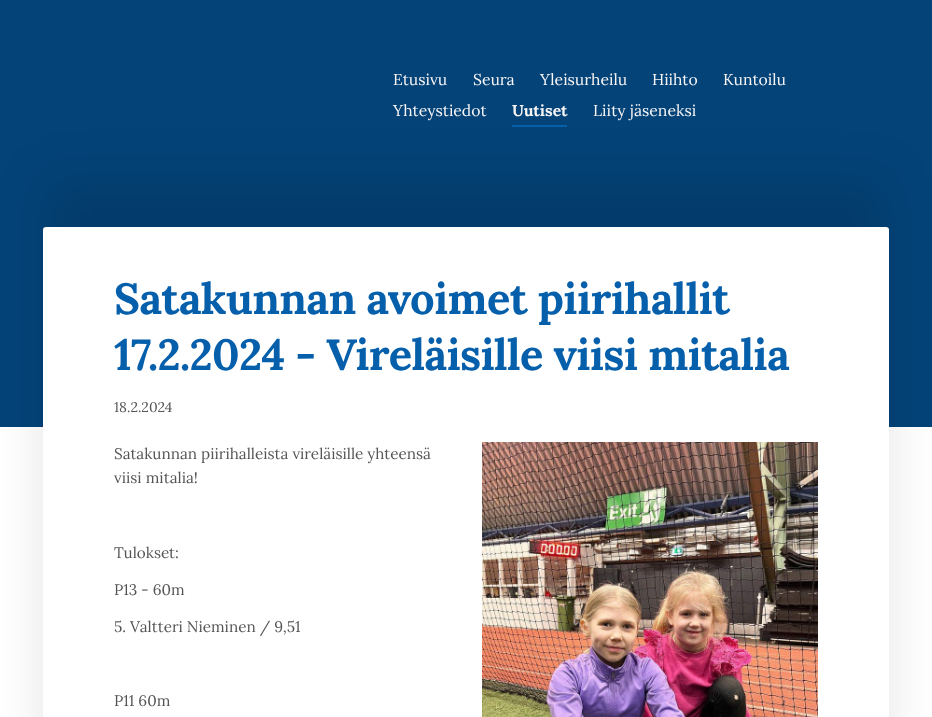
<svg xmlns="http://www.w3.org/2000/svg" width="932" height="717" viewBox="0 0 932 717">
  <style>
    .t1 { font: 15.75px Lora; fill: #f8f5f5; }
    .t2 { font: bold 15.75px Lora; fill: #f8f5f5; }
    .t3 { font: bold 43.5px Lora; letter-spacing: -0.65px; fill: #055fab; }
    .t4 { font: 14px Lora; fill: #555; }
    .t5 { font: 15.25px Lora; fill: #555; }
  </style>
  <rect width="100%" height="100%" fill="#fff"/>
  <rect x="0" y="0" width="932" height="427" fill="#044378"/>
  <text x="393" y="85" class="t1">Etusivu</text>
  <text x="473" y="85" class="t1">Seura</text>
  <text x="540" y="85" class="t1">Yleisurheilu</text>
  <text x="652" y="85" class="t1">Hiihto</text>
  <text x="723" y="85" class="t1">Kuntoilu</text>
  <text x="393" y="116" class="t1">Yhteystiedot</text>
  <text x="512" y="116" class="t2">Uutiset</text>
  <rect x="512" y="125" width="55" height="2" fill="#055fab"/>
  <text x="593" y="116" class="t1">Liity jäseneksi</text>
  <rect x="43" y="177" width="846" height="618" rx="3" fill="#0000001a" filter="blur(25px)"/>
  <rect x="43" y="227" width="846" height="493" rx="3" fill="#fff"/>
  <text x="114" y="314" class="t3">Satakunnan avoimet piirihallit</text>
  <text x="114" y="370" class="t3">17.2.2024 - Vireläisille viisi mitalia</text>
  <text x="114" y="412" class="t4">18.2.2024</text>
  <text x="114" y="459" class="t5">Satakunnan piirihalleista vireläisille yhteensä</text>
  <text x="114" y="483" class="t5">viisi mitalia!</text>
  <text x="114" y="558" class="t5">Tulokset:</text>
  <text x="114" y="595" class="t5">P13 - 60m</text>
  <text x="114" y="632" class="t5">5. Valtteri Nieminen / 9,51</text>
  <text x="114" y="706" class="t5">P11 60m</text>
  <image x="482" y="442" width="336" height="275" href="images/1.png"/>
</svg>
